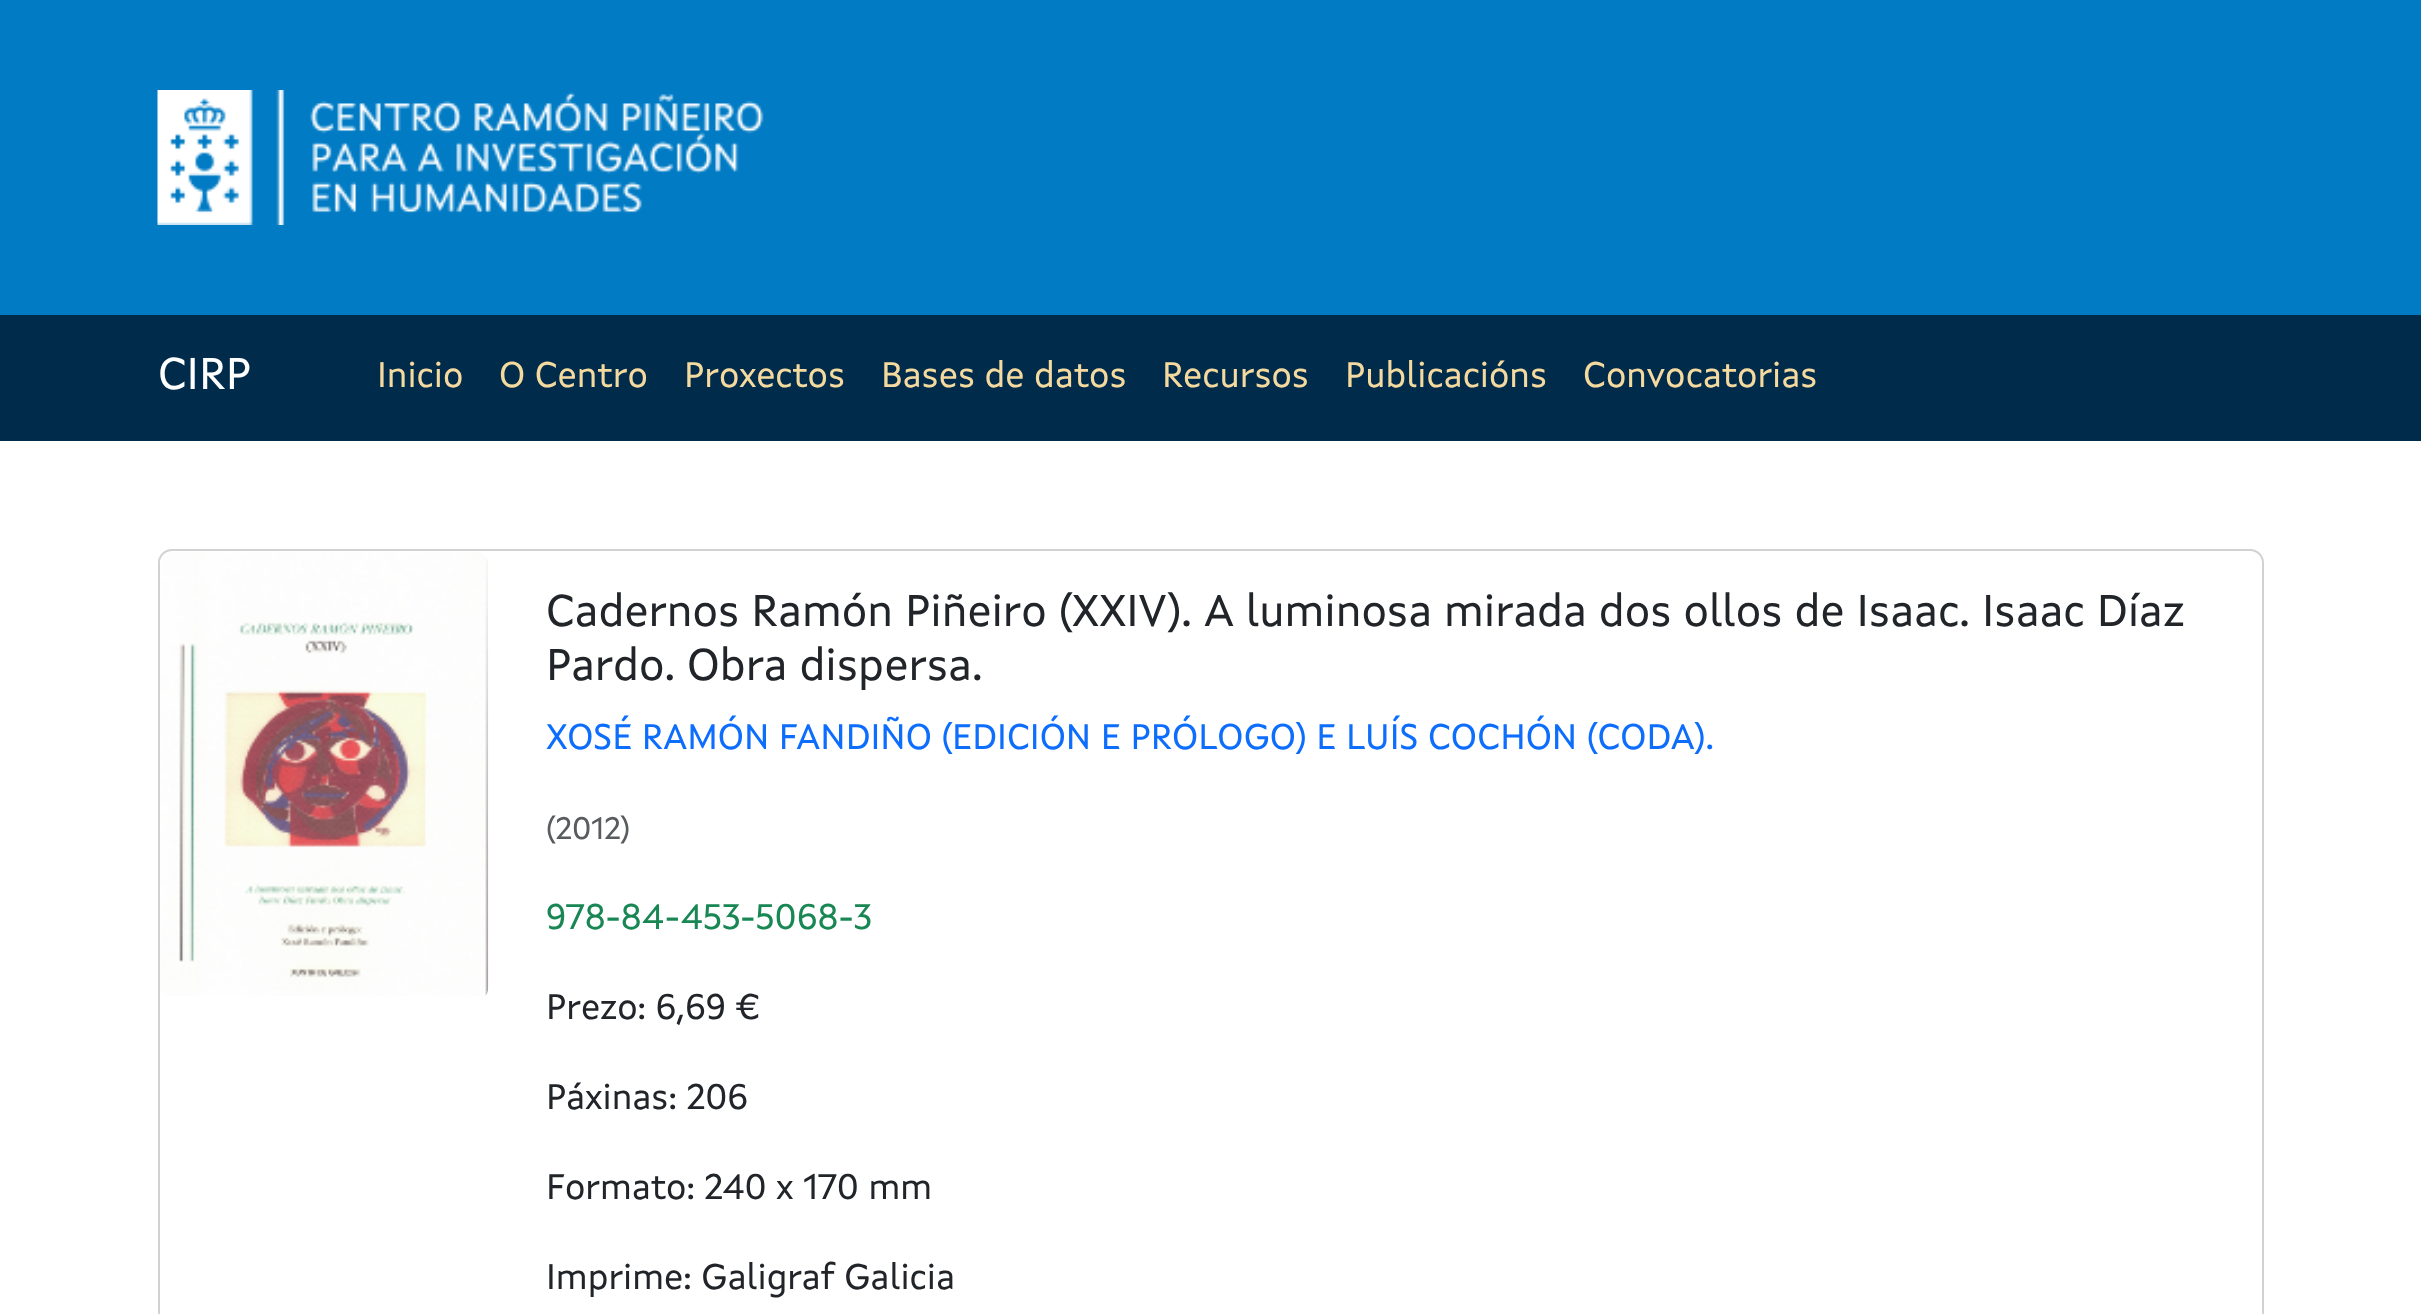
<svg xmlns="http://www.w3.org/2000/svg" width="2421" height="1314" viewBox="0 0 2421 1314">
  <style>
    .t1 { font: 45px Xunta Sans; fill: #fff; }
    .t2 { font: 36px Xunta Sans; fill: #f5da9f; }
    .t3 { font: 45px Xunta Sans; fill: #212529; }
    .t4 { font: 36px Xunta Sans; fill: #0d6efd; }
    .t5 { font: 31.5px Xunta Sans; fill: #595c5f; }
    .t6 { font: 36px Xunta Sans; fill: #198754; }
    .t7 { font: 36px Xunta Sans; fill: #212529; }
  </style>
  <rect width="100%" height="100%" fill="#fff"/>
  <rect x="0" y="0" width="2421" height="315" fill="#007bc4"/>
  <image x="157" y="90" width="607" height="135" href="images/1.png"/>
  <rect x="0" y="315" width="2421" height="126" fill="#002b4a"/>
  <text x="158" y="389" class="t1">CIRP</text>
  <text x="377" y="387" class="t2">Inicio</text>
  <text x="499" y="387" class="t2">O Centro</text>
  <text x="684" y="387" class="t2">Proxectos</text>
  <text x="881" y="387" class="t2">Bases de datos</text>
  <text x="1162" y="387" class="t2">Recursos</text>
  <text x="1345" y="387" class="t2">Publicacións</text>
  <text x="1583" y="387" class="t2">Convocatorias</text>
  <rect x="159" y="550" width="2104" height="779" rx="13" fill="none" stroke="#d2d2d2" stroke-width="2"/>
  <image x="160" y="552" width="329" height="444" href="images/2.png"/>
  <text x="546" y="626" class="t3">Cadernos Ramón Piñeiro (XXIV). A luminosa mirada dos ollos de Isaac. Isaac Díaz</text>
  <text x="546" y="680" class="t3">Pardo. Obra dispersa.</text>
  <text x="546" y="749" class="t4">XOSÉ RAMÓN FANDIÑO (EDICIÓN E PRÓLOGO) E LUÍS COCHÓN (CODA).</text>
  <text x="546" y="839" class="t5">(2012)</text>
  <text x="546" y="929" class="t6">978-84-453-5068-3</text>
  <text x="546" y="1019" class="t7">Prezo: 6,69 €</text>
  <text x="546" y="1109" class="t7">Páxinas: 206</text>
  <text x="546" y="1199" class="t7">Formato: 240 x 170 mm</text>
  <text x="546" y="1289" class="t7">Imprime: Galigraf Galicia</text>
</svg>
